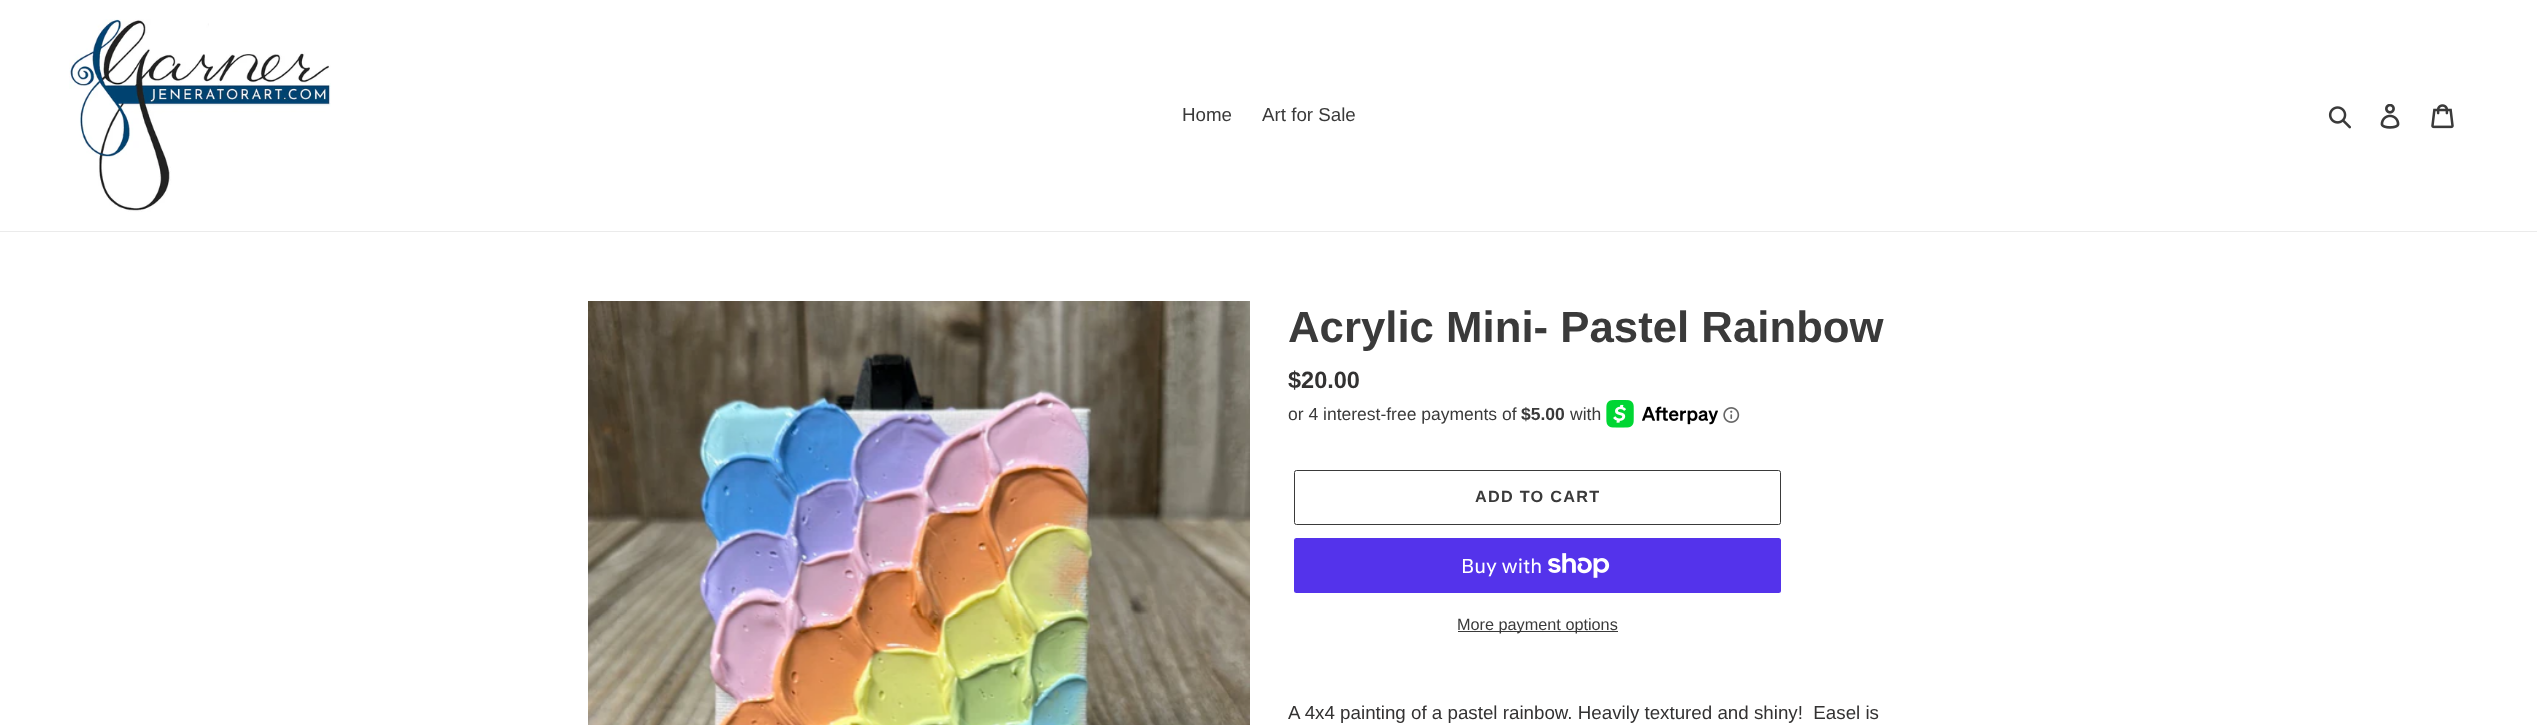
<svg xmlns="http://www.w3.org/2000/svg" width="2537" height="725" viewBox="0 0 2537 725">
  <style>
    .t1 { font: 18.75px Liberation Sans; fill: #3a3a3a; }
    .t2 { font: bold 43.75px Liberation Sans; fill: #3a3a3a; }
    .t3 { font: bold 23.5px Liberation Sans; fill: #333232; }
    .t4 { font: 17.5px Liberation Sans; fill: #3a3a3a; }
    .t5 { font: bold 17.5px Liberation Sans; fill: #3a3a3a; }
    .t6 { font: bold 16.25px Liberation Sans; letter-spacing: 1.25px; fill: #3a3a3a; }
    .t7 { font: 20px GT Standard; fill: #fff; }
    .t8 { font: 16.25px Liberation Sans; fill: #3a3a3a; }
    .t9 { font: 18.75px Liberation Sans; fill: #333232; }
  </style>
  <rect width="100%" height="100%" fill="#fff"/>
  <rect x="0" y="231" width="2537" height="1" fill="#ebebeb"/>
  <image x="69" y="19" width="262" height="193" href="images/1.png"/>
  <text x="1182" y="121" class="t1">Home</text>
  <text x="1262" y="121" class="t1">Art for Sale</text>
  <image x="2328" y="106" width="23" height="23" href="images/2.png"/>
  <image x="2380" y="104" width="20" height="25" href="images/3.png"/>
  <image x="2431" y="104" width="23" height="25" href="images/4.png"/>
  <image x="588" y="301" width="662" height="424" href="images/5.png"/>
  <text x="1288" y="342" class="t2">Acrylic Mini- Pastel Rainbow</text>
  <text x="1288" y="388" class="t3">$20.00</text>
  <text x="1288" y="420" class="t4">or 4 interest-free payments of</text>
  <text x="1521" y="420" class="t5">$5.00</text>
  <text x="1570" y="420" class="t4">with</text>
  <image x="1606" y="400" width="112" height="28" href="images/6.png"/>
  <image x="1723" y="407" width="17" height="16" href="images/7.png"/>
  <rect x="1294.5" y="470.5" width="486" height="54" rx="2" fill="none" stroke="#3a3a3a"/>
  <text x="1475" y="502" class="t6">ADD TO CART</text>
  <rect x="1294" y="538" width="487" height="55" rx="2.5" fill="#5433eb"/>
  <text x="1461" y="573" class="t7">Buy with</text>
  <image x="1548" y="553" width="62" height="25" href="images/8.png"/>
  <rect x="1458" y="631" width="160" height="1" fill="#3a3a3a"/>
  <text x="1457" y="630" class="t8">More payment options</text>
  <text x="1288" y="719" class="t9" xml:space="preserve">A 4x4 painting of a pastel rainbow. Heavily textured and shiny!  Easel is</text>
</svg>
